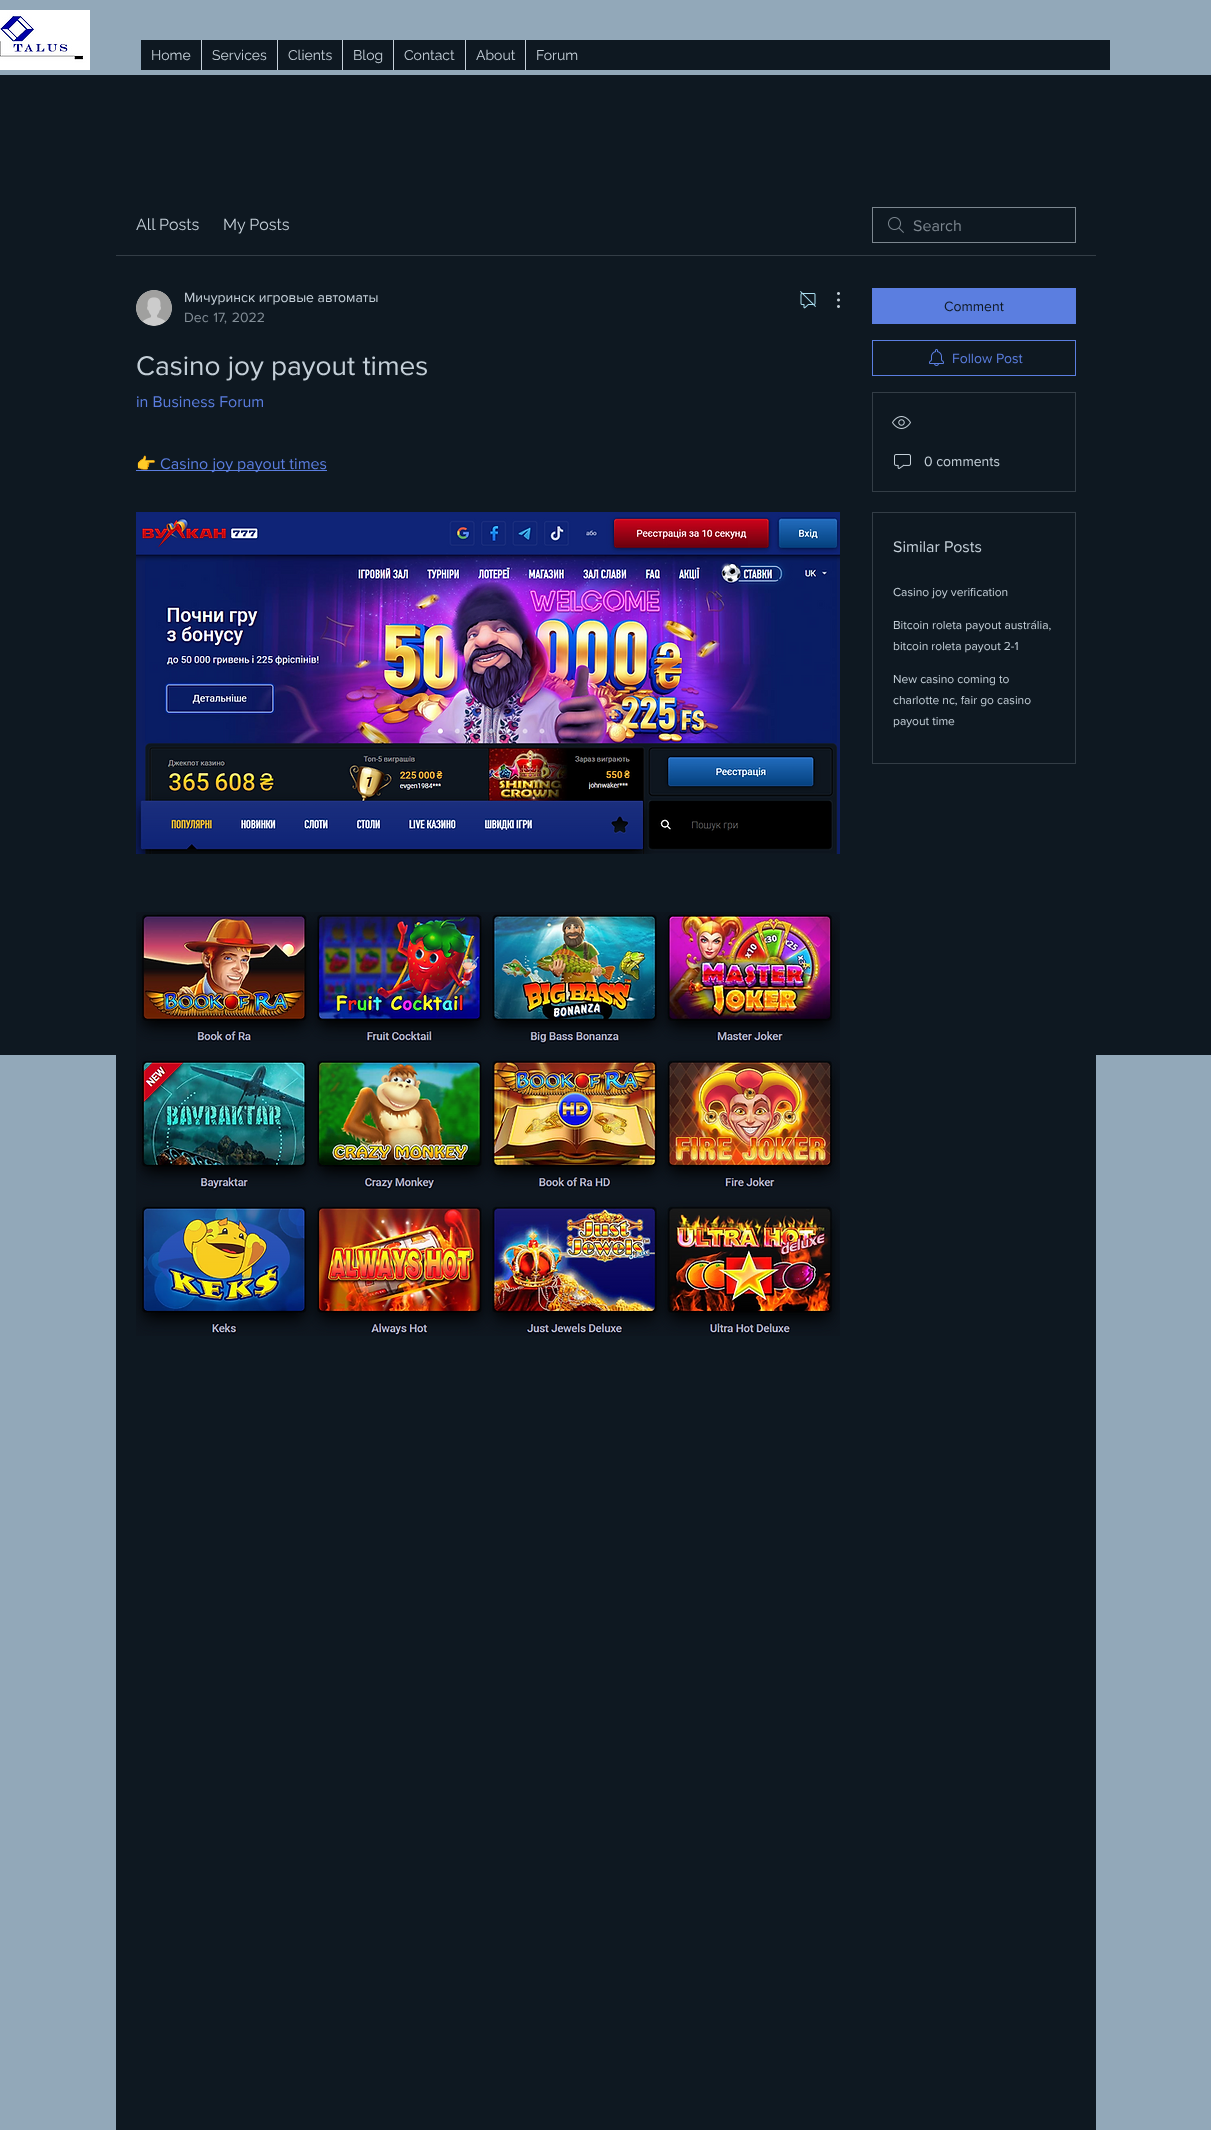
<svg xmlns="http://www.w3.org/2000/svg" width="1211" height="2130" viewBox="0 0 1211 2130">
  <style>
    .t1 { font: 14px Raleway; fill: #c5d0d9; }
    .t2 { font: 16px Raleway; fill: #c5d0d9; }
    .t3 { font: 16px 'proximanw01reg'; fill: #7c868f; }
    .t4 { font: 14px 'proximanw01reg'; fill: #c5d0d9; }
    .t5 { font: 14px 'proximanw01reg'; fill: #838e97; }
    .t6 { font: 28px 'proximanw01reg'; fill: #c5d0d9; }
    .t7 { font: 16px 'proximanw01reg'; fill: #5b7ee0; }
    .t8 { font: 16px Noto Color Emoji; fill: #5b7ee0; }
    .t9 { font: 14px 'proximanw01reg'; fill: #0e1821; }
    .t10 { font: 14px 'proximanw01reg'; fill: #5b7ee0; }
    .t11 { font: 16px 'proximanw01reg'; fill: #c5d0d9; }
    .t12 { font: 12px 'proximanw01reg'; fill: #c5d0d9; }
  </style>
  <defs>
    <clipPath id="clip1"><rect x="136" y="428" width="704" height="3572"/></clipPath>
  </defs>
  <rect width="100%" height="100%" fill="#92a8b9"/>
  <image x="0" y="10" width="90" height="60" href="images/1.png"/>
  <rect x="141" y="40" width="969" height="30" fill="#0e1821"/>
  <text x="151" y="60" class="t1">Home</text>
  <rect x="201" y="40" width="1" height="30" fill="#c5d0d9"/>
  <text x="212" y="60" class="t1">Services</text>
  <rect x="277" y="40" width="1" height="30" fill="#c5d0d9"/>
  <text x="288" y="60" class="t1">Clients</text>
  <rect x="342" y="40" width="1" height="30" fill="#c5d0d9"/>
  <text x="353" y="60" class="t1">Blog</text>
  <rect x="393" y="40" width="1" height="30" fill="#c5d0d9"/>
  <text x="404" y="60" class="t1">Contact</text>
  <rect x="465" y="40" width="1" height="30" fill="#c5d0d9"/>
  <text x="476" y="60" class="t1">About</text>
  <rect x="525" y="40" width="1" height="30" fill="#c5d0d9"/>
  <text x="536" y="60" class="t1">Forum</text>
  <rect x="0" y="75" width="1211" height="980" fill="#0e1821"/>
  <rect x="116" y="1055" width="980" height="1075" fill="#0e1821"/>
  <rect x="116" y="255" width="980" height="1" fill="#333d46"/>
  <text x="136" y="230" class="t2">All Posts</text>
  <text x="223" y="230" class="t2">My Posts</text>
  <image x="888" y="217" width="16" height="16" href="images/2.png"/>
  <rect x="872.5" y="207.5" width="203" height="35" fill="none" stroke="#7c868f"/>
  <text x="913" y="231" class="t3">Search</text>
  <image x="136" y="290" width="36" height="36" href="images/3.png"/>
  <text x="184" y="302" class="t4">Мичуринск игровые автоматы</text>
  <text x="184" y="322" word-spacing="1" class="t5">Dec 17, 2022</text>
  <image x="800" y="291" width="16" height="18" href="images/4.png"/>
  <image x="837" y="292" width="3" height="16" href="images/5.png"/>
  <text x="136" y="375" class="t6">Casino joy payout times</text>
  <text x="136" y="407" class="t7">in Business Forum</text>
  <rect x="136" y="470" width="191" height="1" fill="#5b7ee0"/>
  <g clip-path="url(#clip1)">
    <text x="136" y="469" class="t8">👉</text>
  </g>
  <text x="160" y="469" class="t7">Casino joy payout times</text>
  <image x="136" y="512" width="704" height="342" href="images/6.png"/>
  <image x="136" y="912" width="704" height="424" href="images/7.png"/>
  <rect x="872" y="288" width="204" height="36" fill="#5b7ee0"/>
  <text x="944" y="311" class="t9">Comment</text>
  <rect x="872.5" y="340.5" width="203" height="35" fill="none" stroke="#5b7ee0"/>
  <image x="929" y="349" width="15" height="17" href="images/8.png"/>
  <text x="952" y="363" class="t10">Follow Post</text>
  <rect x="872.5" y="392.5" width="203" height="99" fill="none" stroke="#333d46"/>
  <image x="892" y="416" width="19" height="13" href="images/9.png"/>
  <image x="894" y="454" width="17" height="15" href="images/10.png"/>
  <text x="924" y="466" class="t4">0 comments</text>
  <rect x="872.5" y="512.5" width="203" height="251" fill="none" stroke="#333d46"/>
  <text x="893" y="552" class="t11">Similar Posts</text>
  <text x="893" y="596" class="t12">Casino joy verification</text>
  <text x="893" y="629" class="t12">Bitcoin roleta payout austrália,</text>
  <text x="893" y="650" class="t12">bitcoin roleta payout 2-1</text>
  <text x="893" y="683" class="t12">New casino coming to</text>
  <text x="893" y="704" class="t12">charlotte nc, fair go casino</text>
  <text x="893" y="725" class="t12">payout time</text>
</svg>
